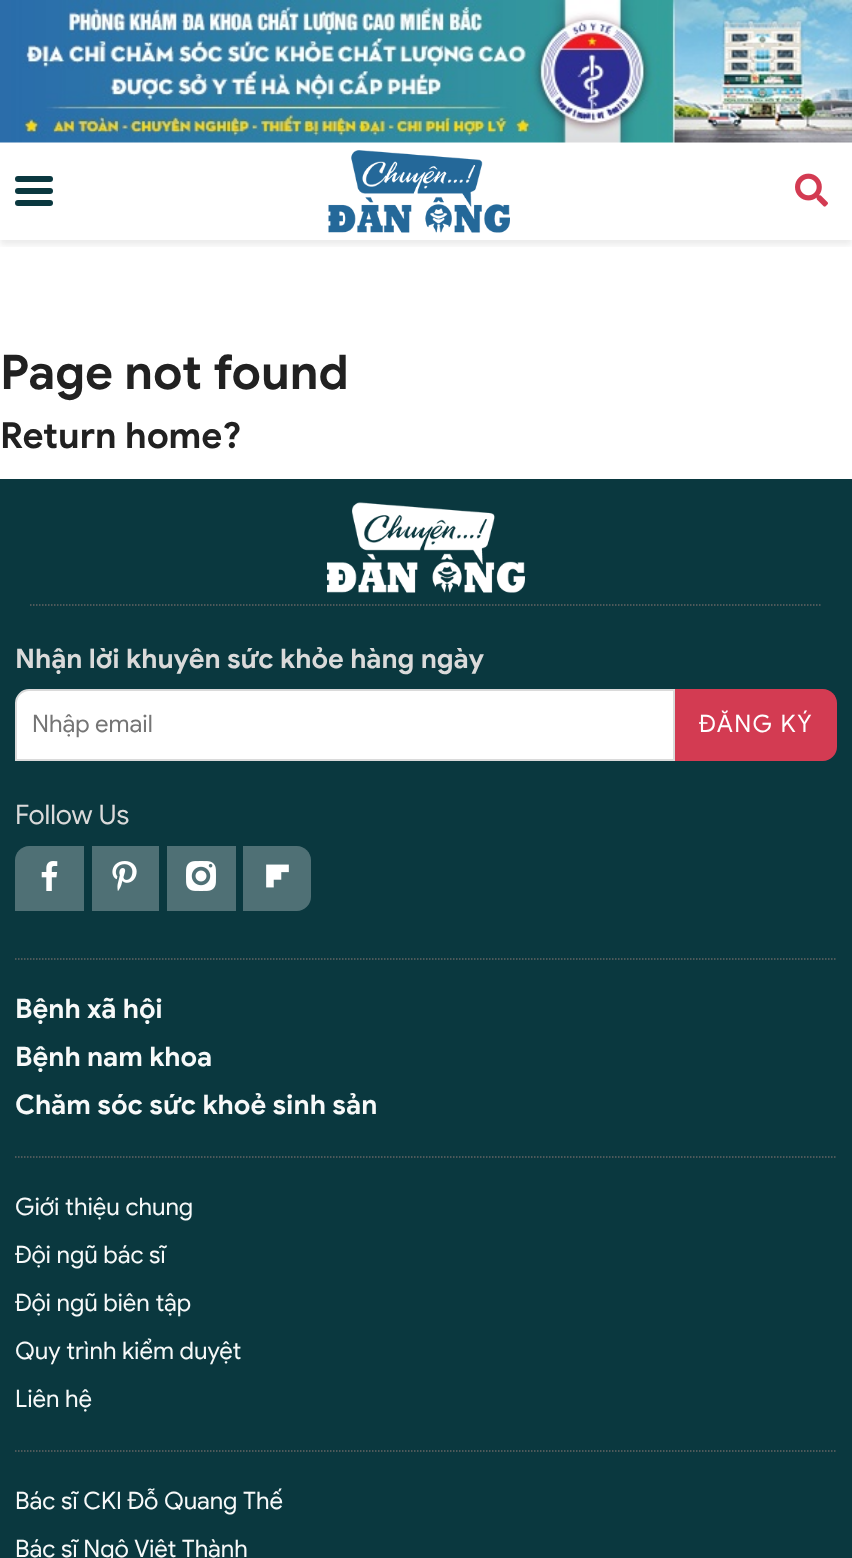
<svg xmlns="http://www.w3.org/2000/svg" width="852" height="1558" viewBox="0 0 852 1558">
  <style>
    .t1 { font: bold 48px Google Sans; fill: #212121; }
    .t2 { font: bold 36px Google Sans; fill: #212121; }
    .t3 { font: bold 27px Google Sans; fill: #dadada; }
    .t4 { font: 24px Google Sans; fill: #757575; }
    .t5 { font: 24px Google Sans; letter-spacing: 1.5px; fill: #fff; }
    .t6 { font: 27px Google Sans; fill: #dadada; }
    .t7 { font: bold 27px Google Sans; fill: #f7f9f9; }
    .t8 { font: 24px Google Sans; fill: #f7f9f9; }
  </style>
  <defs>
    <clipPath id="clip1"><rect x="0" y="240" width="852" height="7"/></clipPath>
  </defs>
  <rect width="100%" height="100%" fill="#fff"/>
  <g clip-path="url(#clip1)">
    <rect x="0" y="147" width="852" height="98" fill="#00000014" filter="blur(3px)"/>
  </g>
  <image x="0" y="0" width="852" height="143" href="images/1.png"/>
  <rect x="15" y="176" width="38" height="6" rx="3" fill="#0a383f"/>
  <rect x="15" y="188" width="38" height="6" rx="3" fill="#0a383f"/>
  <rect x="15" y="200" width="38" height="6" rx="3" fill="#0a383f"/>
  <image x="328" y="150" width="182" height="83" href="images/2.png"/>
  <image x="795" y="173" width="33" height="34" href="images/3.png"/>
  <text x="0" y="389" class="t1">Page not found</text>
  <text x="0" y="448" class="t2">Return home?</text>
  <rect x="0" y="479" width="852" height="1079" fill="#0a383f"/>
  <path d="M30 605H822" fill="none" stroke="#646464" stroke-width="1.5" stroke-dasharray="1.5 1.5"/>
  <image x="327" y="502" width="198" height="91" href="images/4.png"/>
  <text x="15" y="668" class="t3">Nhận lời khuyên sức khỏe hàng ngày</text>
  <path d="M29 690H674V760H16V703C16 696 22 690 29 690Z" fill="#fff" stroke="#dadada" stroke-width="2"/>
  <text x="32" y="732" class="t4">Nhập email</text>
  <path d="M675 689H823C830.5 689 837 695.5 837 703V747C837 754.5 830.5 761 823 761H675Z" fill="#d33b52"/>
  <text x="699" y="732" class="t5">ĐĂNG KÝ</text>
  <text x="15" y="824" class="t6">Follow Us</text>
  <path d="M29 846H84V911H15V860C15 852.5 21.5 846 29 846Z" fill="#4f7075"/>
  <image x="41" y="861" width="17" height="30" href="images/5.png"/>
  <rect x="92" y="846" width="67" height="65" fill="#4f7075"/>
  <image x="112" y="861" width="25" height="30" href="images/6.png"/>
  <rect x="167" y="846" width="69" height="65" fill="#4f7075"/>
  <image x="186" y="861" width="30" height="30" href="images/7.png"/>
  <path d="M243 846H297C304.5 846 311 852.5 311 860V897C311 904.5 304.5 911 297 911H243Z" fill="#4f7075"/>
  <image x="266" y="864" width="23" height="24" href="images/8.png"/>
  <path d="M15 959H837" fill="none" stroke="#646464" stroke-width="1.5" stroke-dasharray="1.5 1.5"/>
  <text x="15" y="1018" class="t7">Bệnh xã hội</text>
  <text x="15" y="1066" class="t7">Bệnh nam khoa</text>
  <text x="15" y="1114" class="t7">Chăm sóc sức khoẻ sinh sản</text>
  <path d="M15 1157H837" fill="none" stroke="#646464" stroke-width="1.5" stroke-dasharray="1.5 1.5"/>
  <text x="15" y="1215" class="t8">Giới thiệu chung</text>
  <text x="15" y="1263" class="t8">Đội ngũ bác sĩ</text>
  <text x="15" y="1311" class="t8">Đội ngũ biên tập</text>
  <text x="15" y="1359" class="t8">Quy trình kiểm duyệt</text>
  <text x="15" y="1407" class="t8">Liên hệ</text>
  <path d="M15 1451H837" fill="none" stroke="#646464" stroke-width="1.5" stroke-dasharray="1.5 1.5"/>
  <text x="15" y="1509" class="t8">Bác sĩ CKI Đỗ Quang Thế</text>
  <text x="15" y="1557" class="t8">Bác sĩ Ngô Việt Thành</text>
</svg>
